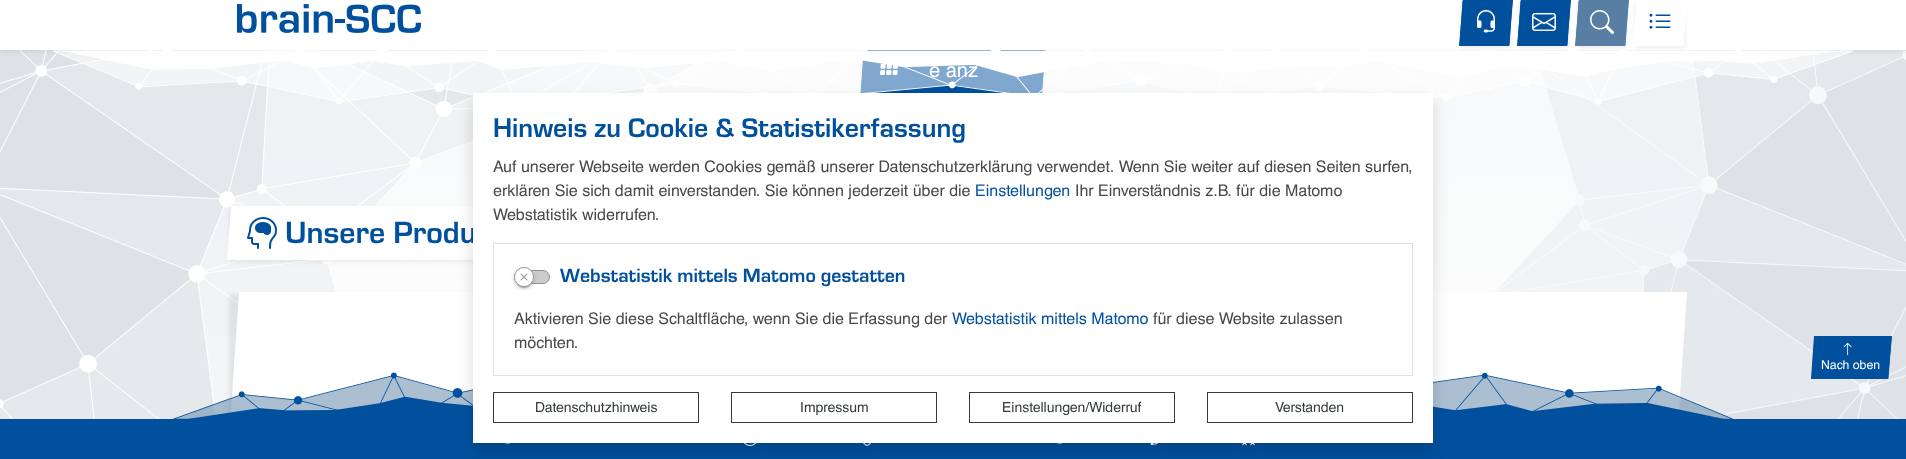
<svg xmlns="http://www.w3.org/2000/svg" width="1906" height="459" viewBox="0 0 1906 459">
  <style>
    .t1 { font: 20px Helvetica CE; fill: #fff; }
    .t2 { font: bold 32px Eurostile; fill: #00509e; }
    .t3 { font: bold 28px Eurostile; fill: #00509e; }
    .t4 { font: 16px Helvetica CE; fill: #484848; }
    .t5 { font: 16px Helvetica CE; fill: #00509e; }
    .t6 { font: bold 20px Eurostile; fill: #00509e; }
    .t7 { font: 14px Helvetica CE; fill: #343a40; }
    .t8 { font: 12.25px Helvetica CE; fill: #fff; }
  </style>
  <defs>
    <linearGradient id="g1" gradientUnits="userSpaceOnUse" x1="953" y1="459" x2="953" y2="0"><stop offset="0" stop-color="#fff"/><stop offset="0.75" stop-color="#f8f9fa"/><stop offset="1" stop-color="#f8f9fa"/></linearGradient>
  </defs>
  <rect width="100%" height="100%" fill="#fff"/>
  <rect x="0" y="50" width="1906" height="286" fill="url(#g1)"/>
  <image x="0" y="50" width="721" height="369" href="images/7.png"/>
  <image x="1486" y="50" width="420" height="369" href="images/8.png"/>
  <rect x="862" y="48" width="182" height="48" fill="#00000012" filter="blur(2px)"/>
  <path d="M864 46H1045L1042 94H861Z" fill="#00509e"/>
  <path d="M864.5 46.5H1045L1041.5 93.5H861Z" fill="none" stroke="#00509e"/>
  <rect x="0" y="2" width="1906" height="50" fill="#00000012" filter="blur(2px)"/>
  <rect x="0" y="0" width="1906" height="50" fill="#fff"/>
  <image x="237" y="4" width="184" height="29" href="images/1.png"/>
  <image x="880" y="63" width="18" height="12" href="images/9.png"/>
  <text x="929" y="77" class="t1">e anz</text>
  <image x="53" y="50" width="1800" height="55" href="images/6.png"/>
  <rect x="1461" y="2" width="50" height="46" fill="#00000012" filter="blur(2px)"/>
  <path d="M1463 0H1513L1509 46H1459Z" fill="#00509e"/>
  <path d="M1463 .5H1512L1509 45.5H1460Z" fill="none" stroke="#00509e"/>
  <image x="1477" y="10" width="19" height="23" href="images/2.png"/>
  <rect x="1519" y="2" width="50" height="46" fill="#00000012" filter="blur(2px)"/>
  <path d="M1521 0H1571L1567 46H1517Z" fill="#00509e"/>
  <path d="M1521 .5H1570L1567 45.5H1518Z" fill="none" stroke="#00509e"/>
  <image x="1532" y="12" width="24" height="19" href="images/3.png"/>
  <rect x="1577" y="2" width="50" height="46" fill="#00000012" filter="blur(2px)"/>
  <path d="M1579 0H1629L1625 46H1575Z" fill="#587fa3"/>
  <path d="M1579 .5H1628L1625 45.5H1576Z" fill="none" stroke="#587fa3"/>
  <image x="1590" y="10" width="24" height="24" href="images/4.png"/>
  <rect x="1635" y="2" width="50" height="46" fill="#00000012" filter="blur(2px)"/>
  <path d="M1637 0H1687L1683 46H1633Z" fill="#fff"/>
  <path d="M1637 .5H1686L1683 45.5H1634Z" fill="none" stroke="#fff"/>
  <image x="1649" y="13" width="22" height="16" href="images/5.png"/>
  <rect x="229" y="208" width="307" height="54" fill="#00000012" filter="blur(2px)"/>
  <path d="M231 206H538L534 260H227Z" fill="#fff"/>
  <image x="247" y="217" width="30" height="32" href="images/10.png"/>
  <text x="285" y="243" class="t2">Unsere Produ</text>
  <rect x="229" y="294" width="708" height="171" fill="#00000012" filter="blur(2px)"/>
  <path d="M239 292H947L927 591H219Z" fill="#fff"/>
  <path d="M979 292H1687L1667 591H959Z" fill="#fff"/>
  <rect x="0" y="419" width="1906" height="40" fill="#00509e"/>
  <image x="173" y="372" width="1560" height="47" href="images/13.png"/>
  <image x="505" y="443" width="5" height="1" href="images/14.png"/>
  <image x="743" y="443" width="14" height="3" href="images/15.png"/>
  <image x="863" y="443" width="8" height="3" href="images/16.png"/>
  <image x="1057" y="443" width="5" height="1" href="images/14.png"/>
  <image x="1150" y="443" width="8" height="2" href="images/17.png"/>
  <image x="1242" y="443" width="13" height="3" href="images/18.png"/>
  <rect x="473" y="101" width="960" height="350" fill="#00000026" filter="blur(8px)"/>
  <rect x="473" y="93" width="960" height="350" fill="#fff"/>
  <text x="493" y="137" class="t3">Hinweis zu Cookie &amp; Statistikerfassung</text>
  <text x="493" y="172" class="t4">Auf unserer Webseite werden Cookies gemäß unserer Datenschutzerklärung verwendet. Wenn Sie weiter auf diesen Seiten surfen,</text>
  <text x="493" y="196" class="t4">erklären Sie sich damit einverstanden. Sie können jederzeit über die</text>
  <text x="975" y="196" class="t5">Einstellungen</text>
  <text x="1075" y="196" class="t4">Ihr Einverständnis z.B. für die Matomo</text>
  <text x="493" y="220" class="t4">Webstatistik widerrufen.</text>
  <rect x="493.5" y="243.5" width="919" height="132" fill="none" stroke="#dee2e6"/>
  <rect x="514.5" y="270.5" width="35" height="13" rx="6.5" fill="#ccc" stroke="#949494"/>
  <rect x="514" y="268" width="20" height="20" rx="10" fill="#0000001f" filter="blur(2.5px)"/>
  <rect x="514" y="269" width="20" height="20" rx="10" fill="#00000024" filter="blur(1px)"/>
  <rect x="516" y="272" width="16" height="16" rx="8" fill="#00000033" filter="blur(0.5px)"/>
  <circle cx="524" cy="277" r="10" fill="#fff"/>
  <image x="520" y="273" width="8" height="8" href="images/11.png"/>
  <circle cx="524" cy="277" r="9.5" fill="none" stroke="#949494"/>
  <text x="560" y="282" class="t6">Webstatistik mittels Matomo gestatten</text>
  <text x="514" y="324" class="t4">Aktivieren Sie diese Schaltfläche, wenn Sie die Erfassung der</text>
  <text x="952" y="324" class="t5">Webstatistik mittels Matomo</text>
  <text x="1153" y="324" class="t4">für diese Website zulassen</text>
  <text x="514" y="348" class="t4">möchten.</text>
  <rect x="493.5" y="392.5" width="205" height="30" fill="none" stroke="#343a40"/>
  <text x="535" y="412" class="t7">Datenschutzhinweis</text>
  <rect x="731.5" y="392.5" width="205" height="30" fill="none" stroke="#343a40"/>
  <text x="800" y="412" class="t7">Impressum</text>
  <rect x="969.5" y="392.5" width="205" height="30" fill="none" stroke="#343a40"/>
  <text x="1002" y="412" class="t7">Einstellungen/Widerruf</text>
  <rect x="1207.5" y="392.5" width="205" height="30" fill="none" stroke="#343a40"/>
  <text x="1275" y="412" class="t7">Verstanden</text>
  <path d="M1814 336H1892L1888 379H1811Z" fill="#00509e"/>
  <path d="M1815 336.5H1891L1888 378.5H1812Z" fill="none" stroke="#00509e"/>
  <image x="1843" y="342" width="9" height="14" href="images/12.png"/>
  <text x="1821" y="369" class="t8">Nach oben</text>
</svg>
